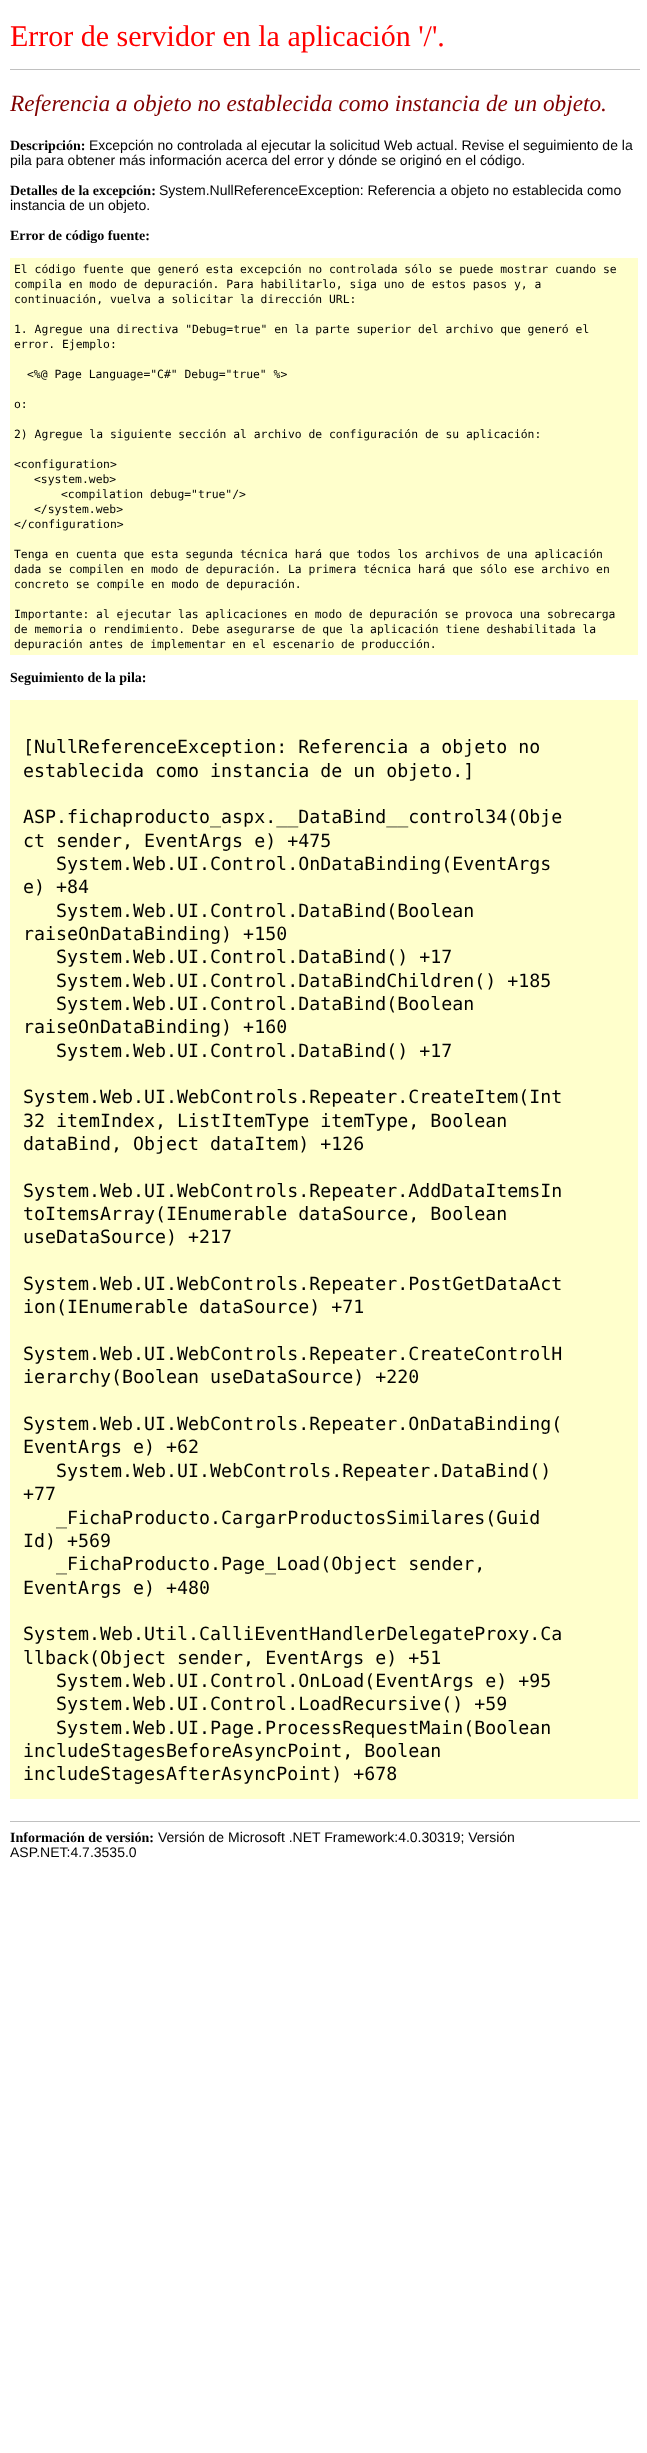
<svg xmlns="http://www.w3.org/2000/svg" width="647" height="2453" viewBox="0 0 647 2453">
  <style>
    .t1 { font: 30px Liberation Serif; fill: #f00; }
    .t2 { font: italic 23.3px Liberation Serif; fill: #800000; }
    .t3 { font: bold 14px Liberation Serif; fill: #000; }
    .t4 { font: 14px Liberation Sans; fill: #000; }
    .t5 { font: 11.38px DejaVu Sans Mono; fill: #000; }
    .t6 { font: 18.3px DejaVu Sans Mono; fill: #000; }
  </style>
  <rect width="100%" height="100%" fill="#fff"/>
  <text x="10" y="46" class="t1">Error de servidor en la aplicación '/'.</text>
  <rect x="10" y="69" width="630" height="1" fill="#c0c0c0"/>
  <text x="10" y="111" class="t2">Referencia a objeto no establecida como instancia de un objeto.</text>
  <text x="10" y="150" class="t3">Descripción:</text>
  <text x="89" y="150" class="t4">Excepción no controlada al ejecutar la solicitud Web actual. Revise el seguimiento de la</text>
  <text x="10" y="165" class="t4">pila para obtener más información acerca del error y dónde se originó en el código.</text>
  <text x="10" y="195" class="t3">Detalles de la excepción:</text>
  <text x="159" y="195" class="t4">System.NullReferenceException: Referencia a objeto no establecida como</text>
  <text x="10" y="210" class="t4">instancia de un objeto.</text>
  <text x="10" y="240" class="t3">Error de código fuente:</text>
  <rect x="10" y="258" width="628" height="397" fill="#ffc"/>
  <text x="14" y="273" class="t5">El código fuente que generó esta excepción no controlada sólo se puede mostrar cuando se</text>
  <text x="14" y="288" class="t5">compila en modo de depuración. Para habilitarlo, siga uno de estos pasos y, a</text>
  <text x="14" y="303" class="t5">continuación, vuelva a solicitar la dirección URL:</text>
  <text x="14" y="333" class="t5">1. Agregue una directiva "Debug=true" en la parte superior del archivo que generó el</text>
  <text x="14" y="348" class="t5">error. Ejemplo:</text>
  <text x="27" y="378" class="t5">&lt;%@ Page Language="C#" Debug="true" %&gt;</text>
  <text x="14" y="408" class="t5">o:</text>
  <text x="14" y="438" class="t5">2) Agregue la siguiente sección al archivo de configuración de su aplicación:</text>
  <text x="14" y="468" class="t5">&lt;configuration&gt;</text>
  <text x="34" y="483" class="t5">&lt;system.web&gt;</text>
  <text x="61" y="498" class="t5">&lt;compilation debug="true"/&gt;</text>
  <text x="34" y="513" class="t5">&lt;/system.web&gt;</text>
  <text x="14" y="528" class="t5">&lt;/configuration&gt;</text>
  <text x="14" y="558" class="t5">Tenga en cuenta que esta segunda técnica hará que todos los archivos de una aplicación</text>
  <text x="14" y="573" class="t5">dada se compilen en modo de depuración. La primera técnica hará que sólo ese archivo en</text>
  <text x="14" y="588" class="t5">concreto se compile en modo de depuración.</text>
  <text x="14" y="618" word-spacing="-0.1" class="t5">Importante: al ejecutar las aplicaciones en modo de depuración se provoca una sobrecarga</text>
  <text x="14" y="633" class="t5">de memoria o rendimiento. Debe asegurarse de que la aplicación tiene deshabilitada la</text>
  <text x="14" y="648" word-spacing="-0.25" class="t5">depuración antes de implementar en el escenario de producción.</text>
  <text x="10" y="682" class="t3">Seguimiento de la pila:</text>
  <rect x="10" y="700" width="628" height="1099" fill="#ffc"/>
  <text x="23" y="753" class="t6">[NullReferenceException: Referencia a objeto no</text>
  <text x="23" y="777" class="t6">establecida como instancia de un objeto.]</text>
  <text x="23" y="823" class="t6">ASP.fichaproducto_aspx.__DataBind__control34(Obje</text>
  <text x="23" y="847" class="t6">ct sender, EventArgs e) +475</text>
  <text x="56" y="870" class="t6">System.Web.UI.Control.OnDataBinding(EventArgs</text>
  <text x="23" y="893" class="t6">e) +84</text>
  <text x="56" y="917" class="t6">System.Web.UI.Control.DataBind(Boolean</text>
  <text x="23" y="940" class="t6">raiseOnDataBinding) +150</text>
  <text x="56" y="963" class="t6">System.Web.UI.Control.DataBind() +17</text>
  <text x="56" y="987" class="t6">System.Web.UI.Control.DataBindChildren() +185</text>
  <text x="56" y="1010" class="t6">System.Web.UI.Control.DataBind(Boolean</text>
  <text x="23" y="1033" class="t6">raiseOnDataBinding) +160</text>
  <text x="56" y="1057" class="t6">System.Web.UI.Control.DataBind() +17</text>
  <text x="23" y="1103" class="t6">System.Web.UI.WebControls.Repeater.CreateItem(Int</text>
  <text x="23" y="1127" class="t6">32 itemIndex, ListItemType itemType, Boolean</text>
  <text x="23" y="1150" class="t6">dataBind, Object dataItem) +126</text>
  <text x="23" y="1197" class="t6">System.Web.UI.WebControls.Repeater.AddDataItemsIn</text>
  <text x="23" y="1220" class="t6">toItemsArray(IEnumerable dataSource, Boolean</text>
  <text x="23" y="1243" class="t6">useDataSource) +217</text>
  <text x="23" y="1290" class="t6">System.Web.UI.WebControls.Repeater.PostGetDataAct</text>
  <text x="23" y="1313" class="t6">ion(IEnumerable dataSource) +71</text>
  <text x="23" y="1360" class="t6">System.Web.UI.WebControls.Repeater.CreateControlH</text>
  <text x="23" y="1383" class="t6">ierarchy(Boolean useDataSource) +220</text>
  <text x="23" y="1430" class="t6">System.Web.UI.WebControls.Repeater.OnDataBinding(</text>
  <text x="23" y="1453" class="t6">EventArgs e) +62</text>
  <text x="56" y="1477" class="t6">System.Web.UI.WebControls.Repeater.DataBind()</text>
  <text x="23" y="1500" class="t6">+77</text>
  <text x="56" y="1524" class="t6">_FichaProducto.CargarProductosSimilares(Guid</text>
  <text x="23" y="1547" class="t6">Id) +569</text>
  <text x="56" y="1570" class="t6">_FichaProducto.Page_Load(Object sender,</text>
  <text x="23" y="1594" class="t6">EventArgs e) +480</text>
  <text x="23" y="1640" class="t6">System.Web.Util.CalliEventHandlerDelegateProxy.Ca</text>
  <text x="23" y="1664" class="t6">llback(Object sender, EventArgs e) +51</text>
  <text x="56" y="1687" class="t6">System.Web.UI.Control.OnLoad(EventArgs e) +95</text>
  <text x="56" y="1710" class="t6">System.Web.UI.Control.LoadRecursive() +59</text>
  <text x="56" y="1734" class="t6">System.Web.UI.Page.ProcessRequestMain(Boolean</text>
  <text x="23" y="1757" class="t6">includeStagesBeforeAsyncPoint, Boolean</text>
  <text x="23" y="1780" class="t6">includeStagesAfterAsyncPoint) +678</text>
  <rect x="10" y="1821" width="630" height="1" fill="#c0c0c0"/>
  <text x="10" y="1842" class="t3">Información de versión:</text>
  <text x="158" y="1842" class="t4">Versión de Microsoft .NET Framework:4.0.30319; Versión</text>
  <text x="10" y="1857" class="t4">ASP.NET:4.7.3535.0</text>
</svg>
